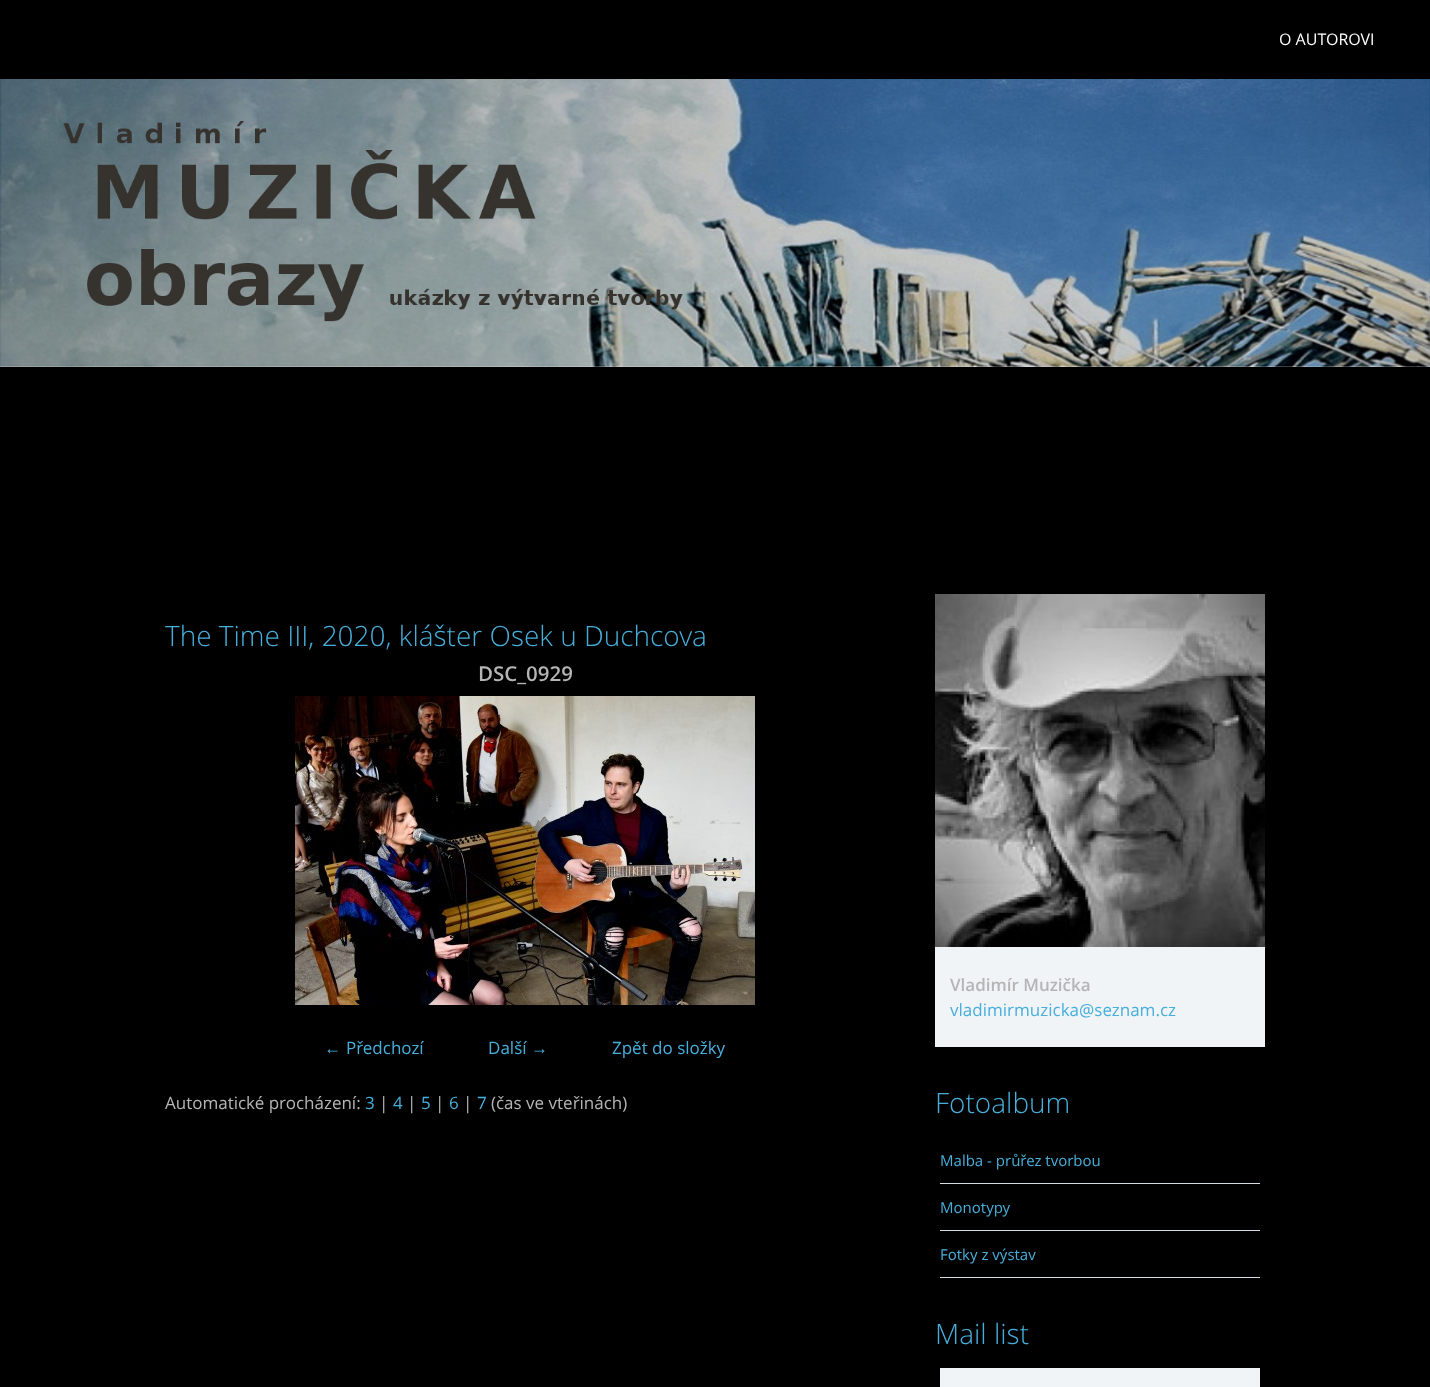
<svg xmlns="http://www.w3.org/2000/svg" width="1430" height="1387" viewBox="0 0 1430 1387">
  <style>
    .t1 { font: 16px Open Sans; fill: #fff; }
    .t2 { font: 300 28px Open Sans; fill: #48afdb; }
    .t3 { font: 600 20.5px Open Sans; fill: #b5b5b5; }
    .t4 { font: 17px Liberation Serif; fill: #48afdb; }
    .t5 { font: 17px Open Sans; fill: #48afdb; }
    .t6 { font: 17px Open Sans; fill: #b5b5b5; }
    .t7 { font: 600 17px Open Sans; fill: #b5b5b5; }
    .t8 { font: 15px Open Sans; fill: #48afdb; }
  </style>
  <rect width="100%" height="100%" fill="#000"/>
  <text x="1279" y="45" class="t1">O AUTOROVI</text>
  <image x="0" y="79" width="1430" height="288" href="images/1.png"/>
  <text x="165" y="646" class="t2">The Time III, 2020, klášter Osek u Duchcova</text>
  <text x="478" y="681" class="t3">DSC_0929</text>
  <image x="295" y="696" width="460" height="309" href="images/2.png"/>
  <text x="324" y="1054" class="t4">←</text>
  <text x="346" y="1054" class="t5">Předchozí</text>
  <text x="488" y="1054" class="t5">Další</text>
  <text x="531" y="1054" class="t4">→</text>
  <text x="612" y="1054" class="t5">Zpět do složky</text>
  <text x="165" y="1109" class="t6">Automatické procházení:</text>
  <text x="365" y="1109" class="t5">3</text>
  <text x="379" y="1109" class="t6">|</text>
  <text x="393" y="1109" class="t5">4</text>
  <text x="407" y="1109" class="t6">|</text>
  <text x="421" y="1109" class="t5">5</text>
  <text x="435" y="1109" class="t6">|</text>
  <text x="449" y="1109" class="t5">6</text>
  <text x="463" y="1109" class="t6">|</text>
  <text x="477" y="1109" class="t5">7</text>
  <text x="491" y="1109" class="t6">(čas ve vteřinách)</text>
  <image x="935" y="594" width="330" height="353" href="images/3.png"/>
  <rect x="935" y="947" width="330" height="100" fill="#f0f4f7"/>
  <text x="950" y="991" class="t7">Vladimír Muzička</text>
  <text x="950" y="1016" class="t5">vladimirmuzicka@seznam.cz</text>
  <text x="935" y="1113" class="t2">Fotoalbum</text>
  <rect x="940" y="1183" width="320" height="1" fill="#d6dde3"/>
  <text x="940" y="1166" class="t8">Malba - průřez tvorbou</text>
  <rect x="940" y="1230" width="320" height="1" fill="#d6dde3"/>
  <text x="940" y="1213" class="t8">Monotypy</text>
  <rect x="940" y="1277" width="320" height="1" fill="#d6dde3"/>
  <text x="940" y="1260" class="t8">Fotky z výstav</text>
  <text x="935" y="1344" class="t2">Mail list</text>
  <rect x="940" y="1368" width="320" height="19" fill="#f0f4f7"/>
</svg>
